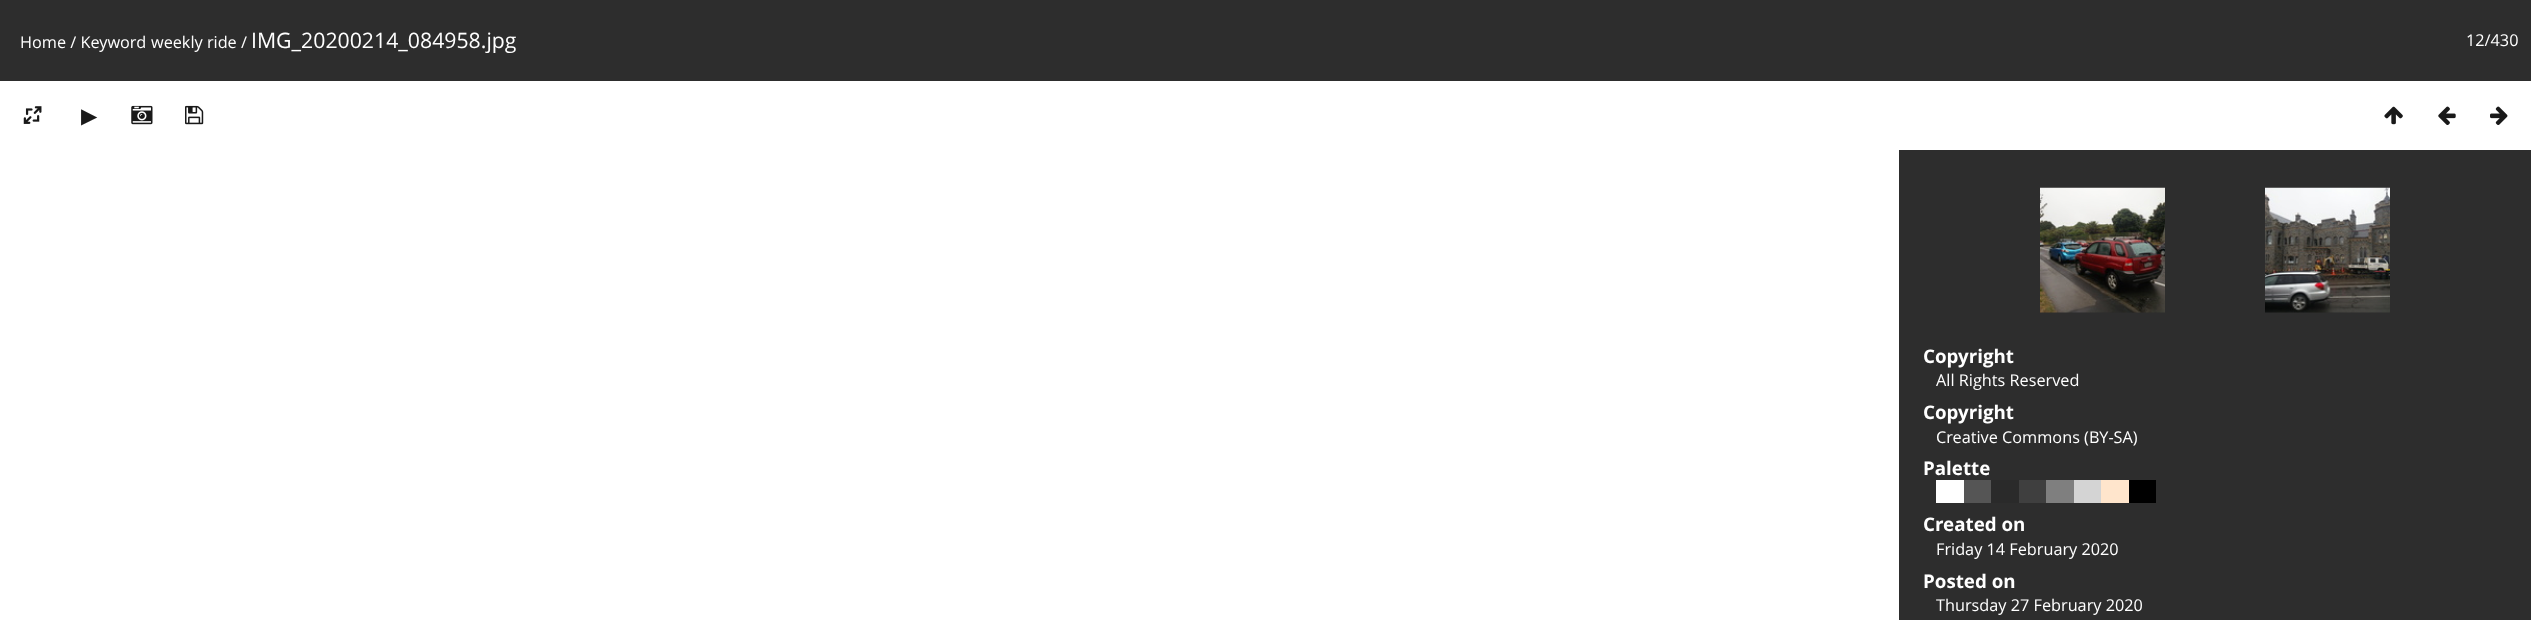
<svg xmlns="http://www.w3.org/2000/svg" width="2531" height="620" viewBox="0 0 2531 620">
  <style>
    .t1 { font: 16.25px Open Sans; fill: #fff; }
    .t2 { font: 21.25px Open Sans; fill: #fff; }
    .t3 { font: 21.25px DejaVu Sans; fill: #1a1a1a; }
    .t4 { font: bold 18.75px Open Sans; fill: #fff; }
  </style>
  <rect width="100%" height="100%" fill="#fff"/>
  <rect x="0" y="0" width="2531" height="81" fill="#2d2d2d"/>
  <text x="20" y="48" class="t1">Home / Keyword</text>
  <text x="151" y="48" class="t1">weekly ride /</text>
  <text x="251" y="48" class="t2">IMG_20200214_084958.jpg</text>
  <text x="2466" y="46" class="t1">12/430</text>
  <image x="23" y="106" width="19" height="18" href="images/1.png"/>
  <text x="81" y="123" class="t3">▶</text>
  <image x="131" y="105" width="22" height="20" href="images/2.png"/>
  <image x="185" y="105" width="19" height="20" href="images/3.png"/>
  <image x="2384" y="106" width="19" height="19" href="images/4.png"/>
  <image x="2438" y="106" width="18" height="19" href="images/5.png"/>
  <image x="2490" y="106" width="18" height="19" href="images/6.png"/>
  <rect x="1899" y="150" width="632" height="470" fill="#2d2d2d"/>
  <image x="2040" y="187" width="125" height="126" href="images/7.png"/>
  <image x="2265" y="187" width="125" height="126" href="images/8.png"/>
  <text x="1923" y="363" class="t4">Copyright</text>
  <text x="1936" y="386" class="t1">All Rights Reserved</text>
  <text x="1923" y="419" class="t4">Copyright</text>
  <text x="1936" y="443" class="t1">Creative Commons (BY-SA)</text>
  <text x="1923" y="475" class="t4">Palette</text>
  <rect x="1936" y="480" width="28" height="23" fill="#fff"/>
  <rect x="1964" y="480" width="27" height="23" fill="#555"/>
  <rect x="1991" y="480" width="28" height="23" fill="#2a2a2a"/>
  <rect x="2019" y="480" width="27" height="23" fill="#3f3f3f"/>
  <rect x="2046" y="480" width="28" height="23" fill="#7f7f7f"/>
  <rect x="2074" y="480" width="27" height="23" fill="#d4d4d4"/>
  <rect x="2101" y="480" width="28" height="23" fill="#ffe5cc"/>
  <rect x="2129" y="480" width="27" height="23" fill="#000"/>
  <text x="1923" y="531" class="t4">Created on</text>
  <text x="1936" y="555" class="t1">Friday 14 February 2020</text>
  <text x="1923" y="588" class="t4">Posted on</text>
  <text x="1936" y="611" class="t1">Thursday 27 February 2020</text>
</svg>
